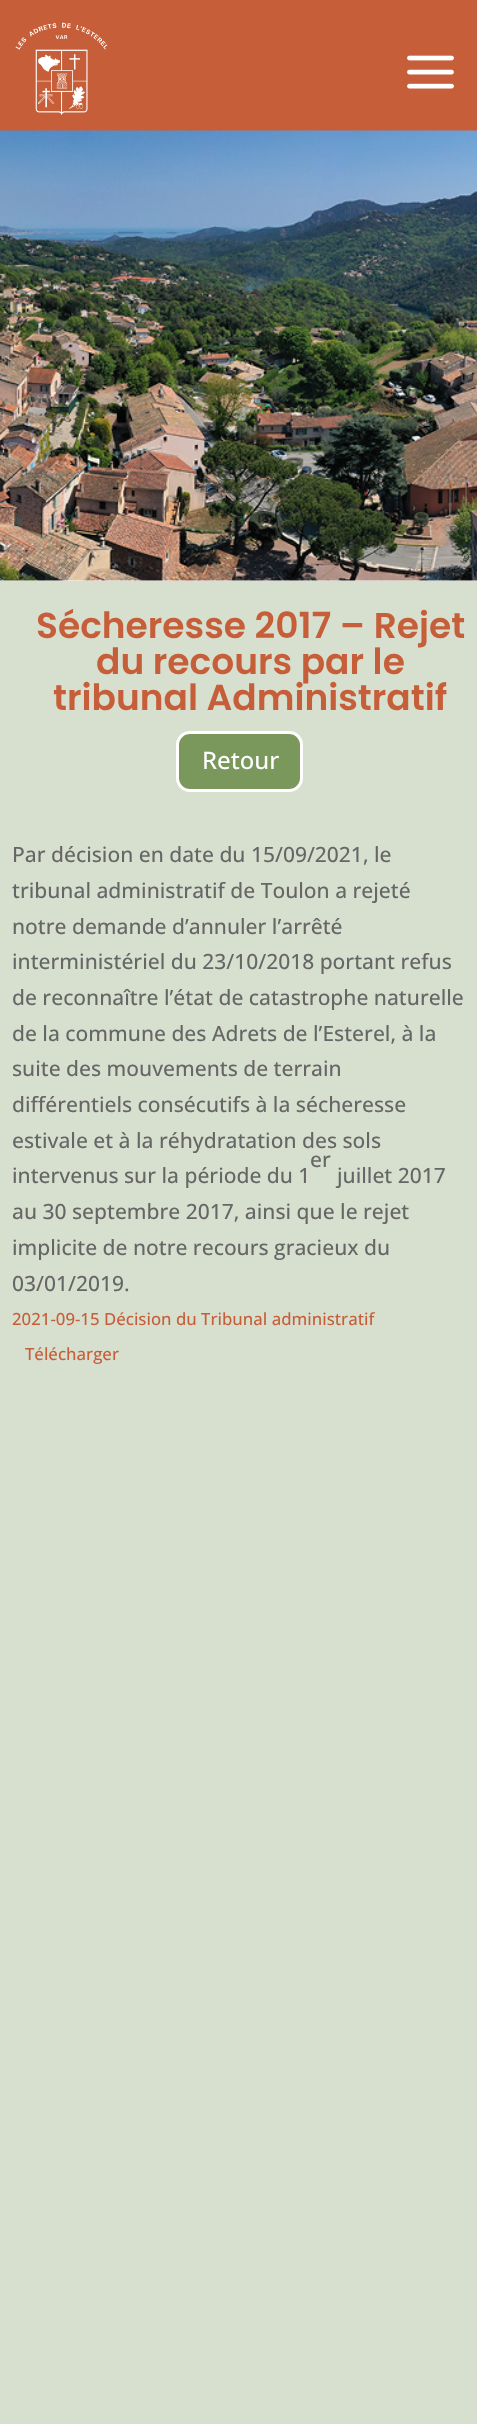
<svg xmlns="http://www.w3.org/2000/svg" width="477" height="2424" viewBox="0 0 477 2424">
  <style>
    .t1 { font: 600 36px Poppins; fill: #c65e39; }
    .t2 { font: 500 24px Open Sans; fill: #fff; }
    .t3 { font: 500 21px Open Sans; fill: #666; }
    .t4 { font: 500 16.8px Open Sans; fill: #c65e39; }
  </style>
  <rect width="100%" height="100%" fill="#fff"/>
  <rect x="0" y="0" width="477" height="131" fill="#c65e39"/>
  <image x="15" y="22" width="93" height="93" href="images/1.png"/>
  <image x="407" y="55" width="47" height="34" href="images/2.png"/>
  <image x="0" y="130" width="477" height="451" href="images/3.png"/>
  <rect x="0" y="581" width="477" height="1843" fill="#d7dfcf"/>
  <text x="36" y="638" class="t1">Sécheresse 2017 – Rejet</text>
  <text x="96" y="674" class="t1">du recours par le</text>
  <text x="53" y="710" class="t1">tribunal Administratif</text>
  <rect x="177.5" y="732.5" width="124" height="58" rx="12.5" fill="#7a985c" stroke="#fff" stroke-width="3"/>
  <text x="202" y="769" class="t2">Retour</text>
  <text x="12" y="862" class="t3">Par décision en date du 15/09/2021, le</text>
  <text x="12" y="898" class="t3">tribunal administratif de Toulon a rejeté</text>
  <text x="12" y="934" class="t3">notre demande d’annuler l’arrêté</text>
  <text x="12" y="969" class="t3">interministériel du 23/10/2018 portant refus</text>
  <text x="12" y="1005" class="t3">de reconnaître l’état de catastrophe naturelle</text>
  <text x="12" y="1041" class="t3">de la commune des Adrets de l’Esterel, à la</text>
  <text x="12" y="1076" class="t3">suite des mouvements de terrain</text>
  <text x="12" y="1112" class="t3">différentiels consécutifs à la sécheresse</text>
  <text x="12" y="1148" class="t3">estivale et à la réhydratation des sols</text>
  <text x="310" y="1167" class="t3">er</text>
  <text x="12" y="1183" class="t3">intervenus sur la période du 1</text>
  <text x="337" y="1183" class="t3">juillet 2017</text>
  <text x="12" y="1219" class="t3">au 30 septembre 2017, ainsi que le rejet</text>
  <text x="12" y="1255" class="t3">implicite de notre recours gracieux du</text>
  <text x="12" y="1291" class="t3">03/01/2019.</text>
  <text x="12" y="1325" class="t4">2021-09-15 Décision du Tribunal administratif</text>
  <text x="25" y="1360" class="t4">Télécharger</text>
</svg>
